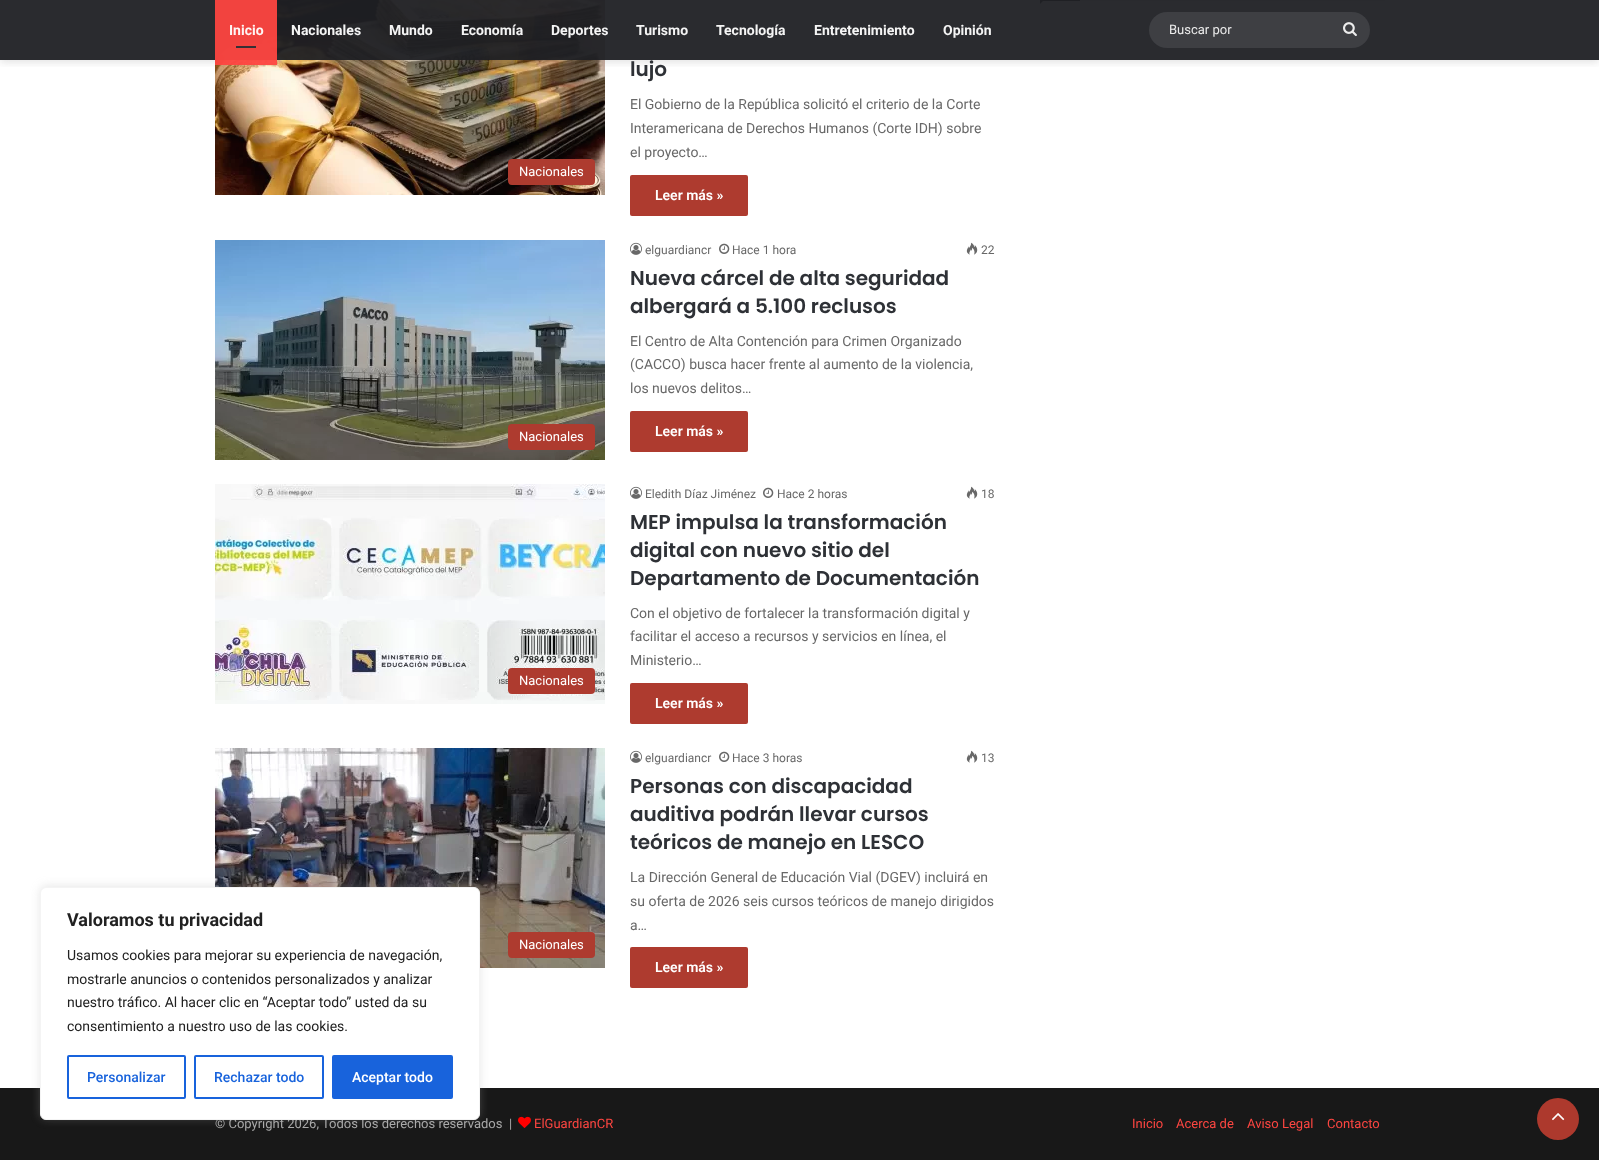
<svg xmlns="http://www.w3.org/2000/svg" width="1599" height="1160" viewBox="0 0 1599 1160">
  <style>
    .t1 { font: bold 14px Roboto; fill: #fef6f5; }
    .t2 { font: bold 14px Roboto; fill: #f4f4f4; }
    .t3 { font: 13px Roboto; fill: #ececec; }
    .t4 { font: 13px Roboto; fill: #fff; }
    .t5 { font: 600 20px Poppins; fill: #2e3136; }
    .t6 { font: 14px Roboto; fill: #686868; }
    .t7 { font: 600 14px Roboto; fill: #fff; }
    .t8 { font: 12px Roboto; fill: #686868; }
    .t9 { font: 13px Roboto; fill: #aaa; }
    .t10 { font: 13px Roboto; fill: #fe4641; }
    .t11 { font: bold 18px Roboto; fill: #212121; }
    .t12 { font: 14px Roboto; fill: #212121; }
    .t13 { font: 500 14px Roboto; fill: #1863dc; }
    .t14 { font: 500 14px Roboto; fill: #fff; }
  </style>
  <defs>
    <clipPath id="clip1"><rect x="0" y="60" width="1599" height="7"/></clipPath>
  </defs>
  <rect width="100%" height="100%" fill="#fff"/>
  <rect x="1080" y="0" width="305" height="1" fill="#e6e6e6"/>
  <path d="M1040-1H1045L1040 4Z" fill="#2e3136"/>
  <rect x="1040" y="0" width="40" height="1" fill="#2e3136"/>
  <image x="215" y="0" width="390" height="195" href="images/2.png"/>
  <g clip-path="url(#clip1)">
    <rect x="0" y="2" width="1599" height="60" fill="#63636333" filter="blur(4px)"/>
  </g>
  <rect x="0" y="0" width="1599" height="60" fill="#1f2024f2"/>
  <rect x="215" y="60" width="62" height="5" fill="#fe4641f2"/>
  <rect x="215" y="0" width="62" height="60" fill="#fe4641f2"/>
  <text x="229" y="35" class="t1">Inicio</text>
  <rect x="236" y="46" width="20" height="2" fill="#363035"/>
  <text x="291" y="35" class="t2">Nacionales</text>
  <text x="389" y="35" class="t2">Mundo</text>
  <text x="461" y="35" class="t2">Economía</text>
  <text x="551" y="35" class="t2">Deportes</text>
  <text x="636" y="35" class="t2">Turismo</text>
  <text x="716" y="35" class="t2">Tecnología</text>
  <text x="814" y="35" class="t2">Entretenimiento</text>
  <text x="943" y="35" class="t2">Opinión</text>
  <rect x="1149" y="12" width="221" height="36" rx="18" fill="#3e3f43"/>
  <text x="1169" y="34" class="t3">Buscar por</text>
  <image x="1343" y="22" width="14" height="15" href="images/1.png"/>
  <rect x="508" y="159" width="87" height="26" rx="4" fill="#ae3b2f"/>
  <text x="519" y="176" class="t4">Nacionales</text>
  <text x="630" y="76" class="t5">lujo</text>
  <text x="630" y="109" class="t6">El Gobierno de la República solicitó el criterio de la Corte</text>
  <text x="630" y="133" class="t6">Interamericana de Derechos Humanos (Corte IDH) sobre</text>
  <text x="630" y="157" class="t6">el proyecto…</text>
  <rect x="630" y="175" width="118" height="41" rx="2" fill="#ae3b2f"/>
  <text x="655" y="200" class="t7">Leer más »</text>
  <image x="215" y="240" width="390" height="220" href="images/3.png"/>
  <rect x="508" y="424" width="87" height="26" rx="4" fill="#ae3b2f"/>
  <text x="519" y="441" class="t4">Nacionales</text>
  <image x="630" y="242" width="12" height="13" href="images/4.png"/>
  <text x="645" y="254" class="t8">elguardiancr</text>
  <image x="719" y="243" width="11" height="11" href="images/5.png"/>
  <text x="732" y="254" class="t8">Hace 1 hora</text>
  <image x="966" y="242" width="12" height="13" href="images/6.png"/>
  <text x="981" y="254" class="t8">22</text>
  <text x="630" y="285" class="t5">Nueva cárcel de alta seguridad</text>
  <text x="630" y="313" class="t5">albergará a 5.100 reclusos</text>
  <text x="630" y="346" class="t6">El Centro de Alta Contención para Crimen Organizado</text>
  <text x="630" y="369" class="t6">(CACCO) busca hacer frente al aumento de la violencia,</text>
  <text x="630" y="393" class="t6">los nuevos delitos…</text>
  <rect x="630" y="411" width="118" height="41" rx="2" fill="#ae3b2f"/>
  <text x="655" y="436" class="t7">Leer más »</text>
  <image x="215" y="484" width="390" height="220" href="images/7.png"/>
  <rect x="508" y="668" width="87" height="26" rx="4" fill="#ae3b2f"/>
  <text x="519" y="685" class="t4">Nacionales</text>
  <image x="630" y="486" width="12" height="13" href="images/4.png"/>
  <text x="645" y="498" class="t8">Eledith Díaz Jiménez</text>
  <image x="763" y="487" width="11" height="11" href="images/5.png"/>
  <text x="777" y="498" class="t8">Hace 2 horas</text>
  <image x="966" y="486" width="12" height="13" href="images/6.png"/>
  <text x="981" y="498" class="t8">18</text>
  <text x="630" y="529" class="t5">MEP impulsa la transformación</text>
  <text x="630" y="557" class="t5">digital con nuevo sitio del</text>
  <text x="630" y="585" class="t5">Departamento de Documentación</text>
  <text x="630" y="618" class="t6">Con el objetivo de fortalecer la transformación digital y</text>
  <text x="630" y="641" class="t6">facilitar el acceso a recursos y servicios en línea, el</text>
  <text x="630" y="665" class="t6">Ministerio…</text>
  <rect x="630" y="683" width="118" height="41" rx="2" fill="#ae3b2f"/>
  <text x="655" y="708" class="t7">Leer más »</text>
  <image x="215" y="748" width="390" height="220" href="images/8.png"/>
  <rect x="508" y="932" width="87" height="26" rx="4" fill="#ae3b2f"/>
  <text x="519" y="949" class="t4">Nacionales</text>
  <image x="630" y="750" width="12" height="13" href="images/4.png"/>
  <text x="645" y="762" class="t8">elguardiancr</text>
  <image x="719" y="751" width="11" height="11" href="images/5.png"/>
  <text x="732" y="762" class="t8">Hace 3 horas</text>
  <image x="966" y="750" width="12" height="13" href="images/6.png"/>
  <text x="981" y="762" class="t8">13</text>
  <text x="630" y="793" class="t5">Personas con discapacidad</text>
  <text x="630" y="821" class="t5">auditiva podrán llevar cursos</text>
  <text x="630" y="849" class="t5">teóricos de manejo en LESCO</text>
  <text x="630" y="882" class="t6">La Dirección General de Educación Vial (DGEV) incluirá en</text>
  <text x="630" y="906" class="t6">su oferta de 2026 seis cursos teóricos de manejo dirigidos</text>
  <text x="630" y="930" class="t6">a…</text>
  <rect x="630" y="947" width="118" height="41" rx="2" fill="#ae3b2f"/>
  <text x="655" y="972" class="t7">Leer más »</text>
  <rect x="0" y="1088" width="1599" height="72" fill="#181818"/>
  <text x="215" y="1128" class="t9" xml:space="preserve">© Copyright 2026, Todos los derechos reservados  |</text>
  <image x="518" y="1116" width="13" height="12" href="images/9.png"/>
  <text x="534" y="1128" class="t10">ElGuardianCR</text>
  <text x="1132" y="1128" class="t10">Inicio</text>
  <text x="1176" y="1128" class="t10">Acerca de</text>
  <text x="1247" y="1128" class="t10">Aviso Legal</text>
  <text x="1327" y="1128" class="t10">Contacto</text>
  <circle cx="1558" cy="1119" r="21" fill="#ad392d"/>
  <image x="1552" y="1113" width="13" height="8" href="images/10.png"/>
  <rect x="40" y="886" width="440" height="233" rx="6" fill="#acabab4d" filter="blur(5px)"/>
  <rect x="40.5" y="887.5" width="439" height="232" rx="5.5" fill="#fff" stroke="#f4f4f4"/>
  <text x="67" y="926" class="t11">Valoramos tu privacidad</text>
  <text x="67" y="960" class="t12">Usamos cookies para mejorar su experiencia de navegación,</text>
  <text x="67" y="984" class="t12">mostrarle anuncios o contenidos personalizados y analizar</text>
  <text x="67" y="1007" class="t12">nuestro tráfico. Al hacer clic en “Aceptar todo” usted da su</text>
  <text x="67" y="1031" class="t12">consentimiento a nuestro uso de las cookies.</text>
  <rect x="68" y="1056" width="117" height="42" rx="1" fill="none" stroke="#1863dc" stroke-width="2"/>
  <text x="87" y="1082" class="t13">Personalizar</text>
  <rect x="195" y="1056" width="128" height="42" rx="1" fill="none" stroke="#1863dc" stroke-width="2"/>
  <text x="214" y="1082" class="t13">Rechazar todo</text>
  <rect x="333" y="1056" width="119" height="42" rx="1" fill="#1863dc" stroke="#1863dc" stroke-width="2"/>
  <text x="352" y="1082" class="t14">Aceptar todo</text>
</svg>
